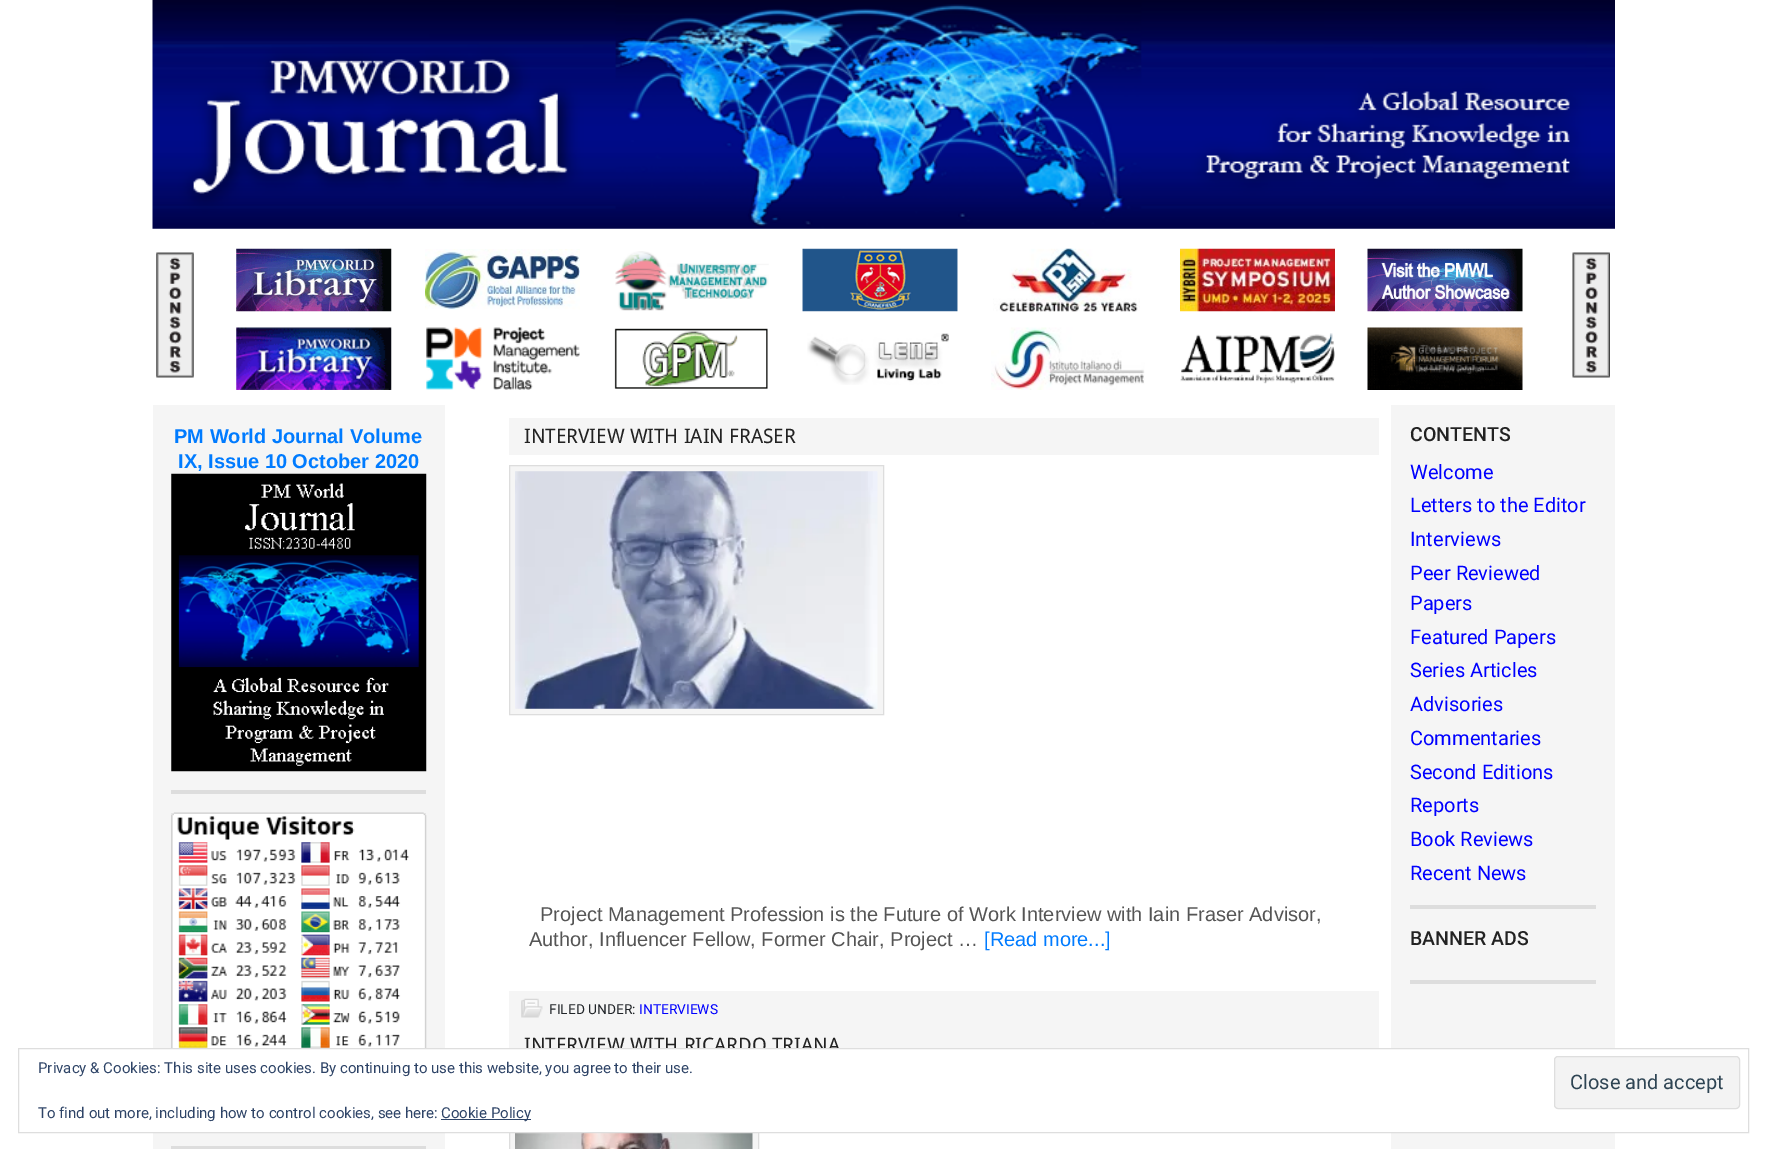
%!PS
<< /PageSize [1766 1149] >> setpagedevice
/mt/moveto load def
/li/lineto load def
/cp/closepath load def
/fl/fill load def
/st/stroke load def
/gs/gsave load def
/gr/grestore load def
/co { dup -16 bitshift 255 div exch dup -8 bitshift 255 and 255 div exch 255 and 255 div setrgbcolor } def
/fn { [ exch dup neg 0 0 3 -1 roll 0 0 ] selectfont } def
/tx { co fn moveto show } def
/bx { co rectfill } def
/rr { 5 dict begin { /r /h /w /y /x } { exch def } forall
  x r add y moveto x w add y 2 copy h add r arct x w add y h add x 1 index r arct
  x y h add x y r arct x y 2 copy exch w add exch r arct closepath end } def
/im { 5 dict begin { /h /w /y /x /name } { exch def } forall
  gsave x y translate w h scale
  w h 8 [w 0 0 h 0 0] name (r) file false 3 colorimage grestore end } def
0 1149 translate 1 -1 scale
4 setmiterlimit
0 0 1766 1149 16#FFFFFF bx
(media/1.raw) 152 0 1463 229 im
(media/2.raw) 156 252 38 126 im
(media/3.raw) 236 248 156 64 im
(media/4.raw) 425 249 155 61 im
(media/5.raw) 615 251 154 60 im
(media/6.raw) 802 248 156 64 im
(media/7.raw) 993 248 147 64 im
(media/8.raw) 1180 248 155 64 im
(media/9.raw) 1367 248 156 64 im
(media/10.raw) 236 327 156 63 im
(media/11.raw) 426 327 154 63 im
(media/12.raw) 614 328 154 61 im
(media/13.raw) 807 333 142 52 im
(media/14.raw) 991 327 154 63 im
(media/15.raw) 1180 333 155 51 im
(media/16.raw) 1367 327 156 63 im
(media/17.raw) 1572 252 38 126 im
153 405 292 744 16#F5F5F5 bx
171 790 255 4 16#DDDDDD bx
(media/18.raw) 171 473 256 299 im
171 1146 255 3 16#DDDDDD bx
171 813 255 235 16#E6E6E6 bx
(media/19.raw) 171 812 256 236 im
509 418 870 37 16#F5F5F5 bx
509.5 465.5 mt 883.5 465.5 li 883.5 714.5 li 509.5 714.5 li cp gs fl gr
16#DDDDDD co
st
(media/20.raw) 515 471 363 238 im
509 991 870 57 16#F5F5F5 bx
(media/21.raw) 521 998 22 20 im
510 1133 248 16 16#F5F5F5 bx
16#DDDDDD co
509.5 1075.5 249 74 rectstroke
(media/22.raw) 515 1133 238 16 im
1391 405 224 744 16#F5F5F5 bx
1410 905 186 4 16#DDDDDD bx
1410 980 186 4 16#DDDDDD bx
(PM World Journal Volume) 174 443 /LiberationSans-Bold 20 16#007BFF tx
(IX, Issue 10 October 2020) 178 468 /LiberationSans-Bold 20 16#007BFF tx
(INTERVIEW WITH IAIN FRASER) 524 443 /DroidSans-Regular 20 16#222222 tx
(Project Management Profession is the Future of Work Interview with Iain Fraser Advisor,) 540 921 /LiberationSans-Regular 20 16#555555 tx
(Author, Influencer Fellow, Former Chair, Project …) 529 946 /LiberationSans-Regular 20 16#555555 tx
([Read more...]) 984 946 /LiberationSans-Regular 20 16#007BFF tx
(FILED UNDER:) 549 1014 /Roboto-Regular 13.75 16#212529 tx
(INTERVIEWS) 639 1014 /Roboto-Regular 13.75 16#0000FF tx
(INTERVIEW WITH RICARDO TRIANA) 524 1052 /DroidSans-Regular 20 16#222222 tx
(CONTENTS) 1410 441 /Roboto-Medium 19.5 16#222222 tx
(Welcome) 1410 479 /Roboto-Regular 20 16#0000FF tx
(Letters to the Editor) 1410 512 /Roboto-Regular 20 16#0000FF tx
(Interviews) 1410 546 /Roboto-Regular 20 16#0000FF tx
(Peer Reviewed) 1410 580 /Roboto-Regular 20 16#0000FF tx
(Papers) 1410 610 /Roboto-Regular 20 16#0000FF tx
(Featured Papers) 1410 644 /Roboto-Regular 20 16#0000FF tx
(Series Articles) 1410 677 /Roboto-Regular 20 16#0000FF tx
(Advisories) 1410 711 /Roboto-Regular 20 16#0000FF tx
(Commentaries) 1410 745 /Roboto-Regular 20 16#0000FF tx
(Second Editions) 1410 779 /Roboto-Regular 20 16#0000FF tx
(Reports) 1410 812 /Roboto-Regular 20 16#0000FF tx
(Book Reviews) 1410 846 /Roboto-Regular 20 16#0000FF tx
(Recent News) 1410 880 /Roboto-Regular 20 16#0000FF tx
(BANNER ADS) 1410 945 /Roboto-Medium 19.5 16#222222 tx
153 1049 1462 83 16#FFFFFF bx
16#DEDEDE co
18.5 1048.5 1730 84 rectstroke
(Privacy & Cookies: This site uses cookies. By continuing to use this website, you agree to their use.) 38 1073 /Roboto-Regular 15 16#2E4467 tx
16#F3F3F3 co
1554.5 1056.5 185 52 3.5 rr gs fl gr
16#DEDEDE co
st
(Close and accept) 1570 1089 /Roboto-Regular 20 16#2E4453 tx
(To find out more, including how to control cookies, see here:) 38 1118 /Roboto-Regular 15 16#2E4467 tx
441 1119 90 1 16#2E4467 bx
(Cookie Policy) 441 1118 /Roboto-Regular 15 16#2E4467 tx
showpage
